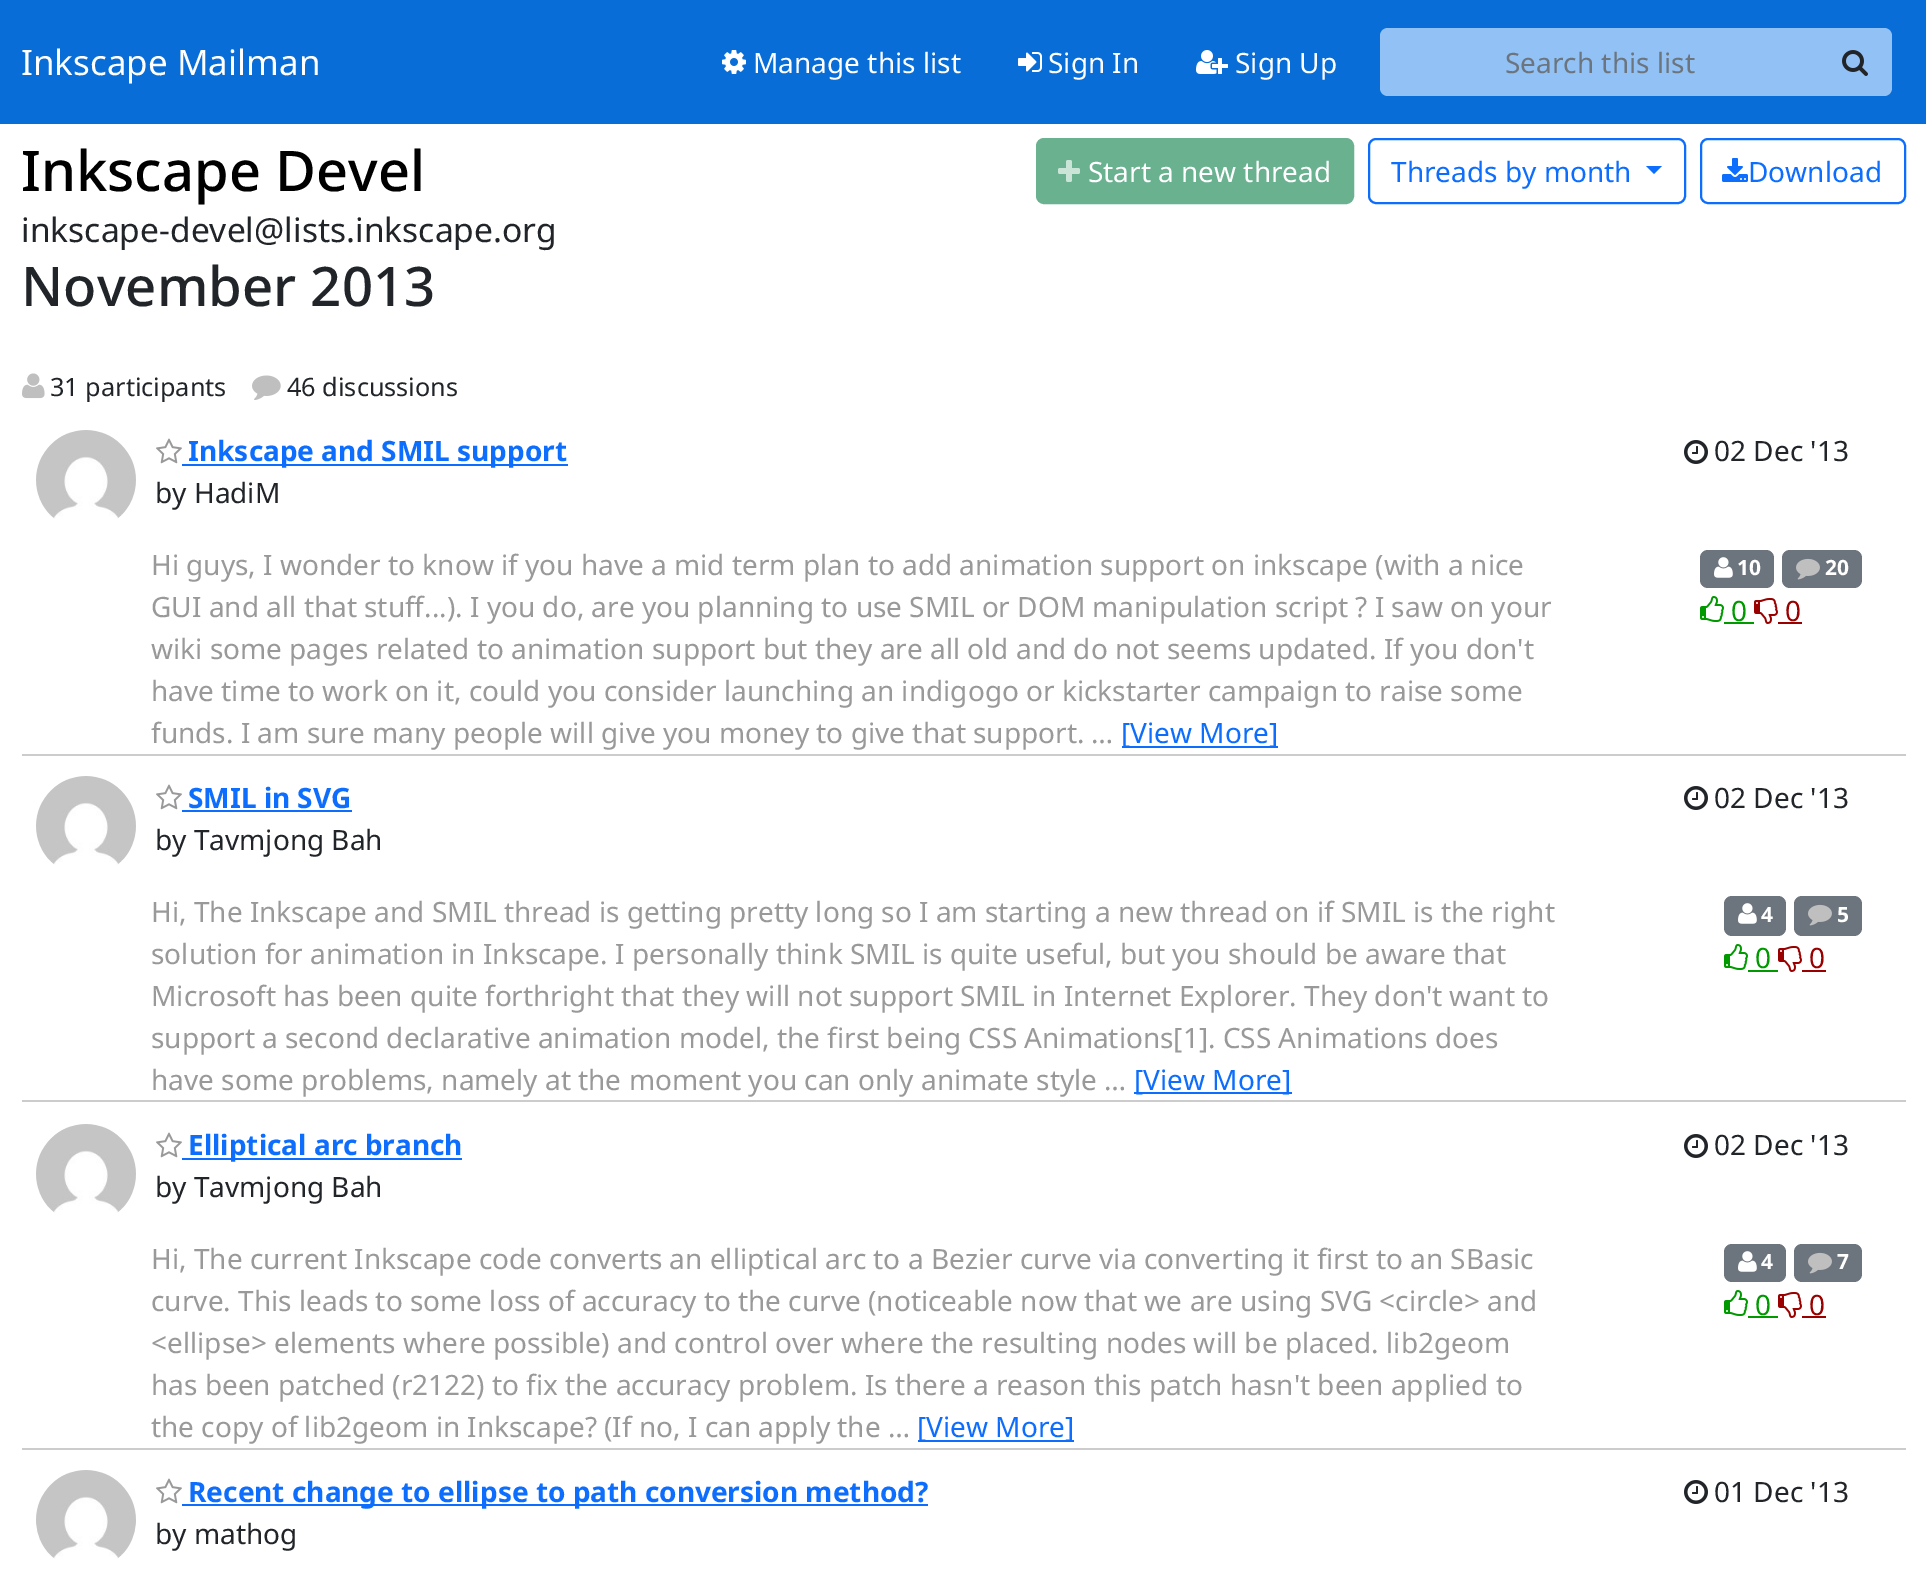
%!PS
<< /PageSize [1926 1579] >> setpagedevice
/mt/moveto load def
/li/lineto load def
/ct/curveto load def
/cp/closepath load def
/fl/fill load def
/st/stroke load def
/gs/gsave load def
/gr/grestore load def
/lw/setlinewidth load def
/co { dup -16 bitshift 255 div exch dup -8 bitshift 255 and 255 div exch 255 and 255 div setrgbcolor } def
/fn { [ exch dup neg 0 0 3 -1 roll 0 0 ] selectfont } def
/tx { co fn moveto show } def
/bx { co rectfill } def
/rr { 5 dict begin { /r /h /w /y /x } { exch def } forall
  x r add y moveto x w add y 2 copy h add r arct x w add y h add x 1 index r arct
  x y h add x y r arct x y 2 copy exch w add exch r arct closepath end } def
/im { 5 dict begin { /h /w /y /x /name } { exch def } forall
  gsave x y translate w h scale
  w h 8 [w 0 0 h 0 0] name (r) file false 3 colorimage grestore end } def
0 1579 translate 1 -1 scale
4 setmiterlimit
0 0 1926 1579 16#FFFFFF bx
0 0 1926 124 16#086DD7 bx
(media/1.raw) 722 50 24 24 im
(media/2.raw) 1018 52 24 20 im
(media/3.raw) 1196 50 32 24 im
16#92C2F5 co
1388 28 mt 1822 28 li 1822 96 li 1388 96 li 1383.5 96 1380 92.5 1380 88 ct 1380 36 li 1380 31.5 1383.5 28 1388 28 ct cp fl
1820 28 mt 1884 28 li 1888.5 28 1892 31.5 1892 36 ct 1892 88 li 1892 92.5 1888.5 96 1884 96 ct 1820 96 li cp fl
(media/4.raw) 1842 50 26 26 im
16#6AB190 co
1037 139 316 64 7 rr gs fl gr
2 lw
st
(media/5.raw) 1058 160 22 22 im
16#0D6EFD co
1369 139 316 64 7 rr st
1646 166 mt 1662 166 li 1654 174 li cp fl
1701 139 204 64 7 rr st
(media/6.raw) 1722 158 26 24 im
(media/7.raw) 22 373 23 26 im
(media/8.raw) 252 375 29 25 im
22 754 1884 2 16#CCCCCC bx
(media/9.raw) 36 430 100 89 im
(media/10.raw) 156 438 26 26 im
182 464 386 2 16#0D6EFD bx
(media/11.raw) 1684 440 24 24 im
1122 746 156 2 16#0D6EFD bx
16#6C757D co
1700 550 74 38 8 rr fl
(media/12.raw) 1714 557 19 21 im
1782 550 80 38 8 rr fl
(media/13.raw) 1796 558 24 22 im
(media/14.raw) 1700 596 24 26 im
1724 622 30 2 16#009900 bx
(media/15.raw) 1754 598 24 26 im
1778 622 24 2 16#990000 bx
22 1100 1884 2 16#CCCCCC bx
(media/16.raw) 36 776 100 89 im
(media/10.raw) 156 784 26 26 im
182 810 170 2 16#0D6EFD bx
(media/11.raw) 1684 786 24 24 im
1134 1092 158 2 16#0D6EFD bx
16#6C757D co
1724 896 62 40 8 rr fl
(media/12.raw) 1738 903 19 21 im
1794 896 68 40 8 rr fl
(media/13.raw) 1808 904 24 22 im
(media/14.raw) 1724 944 24 26 im
1748 970 30 2 16#009900 bx
(media/15.raw) 1778 946 24 26 im
1802 970 24 2 16#990000 bx
22 1448 1884 2 16#CCCCCC bx
(media/16.raw) 36 1124 100 89 im
(media/10.raw) 156 1132 26 26 im
182 1158 280 2 16#0D6EFD bx
(media/11.raw) 1684 1134 24 24 im
918 1440 156 2 16#0D6EFD bx
16#6C757D co
1724 1244 62 38 8 rr fl
(media/12.raw) 1738 1251 19 21 im
1794 1244 68 38 8 rr fl
(media/13.raw) 1808 1252 24 22 im
(media/14.raw) 1724 1290 24 26 im
1748 1316 30 2 16#009900 bx
(media/15.raw) 1778 1292 24 26 im
1802 1316 24 2 16#990000 bx
(media/17.raw) 36 1470 100 89 im
(media/10.raw) 156 1478 26 26 im
182 1504 746 2 16#0D6EFD bx
(media/11.raw) 1684 1480 24 24 im
(Inkscape Mailman) 21 75 /NotoSans-Regular 35 16#FFFFFF tx
(Manage this list) 753 73 /NotoSans-Regular 28 16#FFFFFF tx
(Sign In) 1048 73 /NotoSans-Regular 28 16#FFFFFF tx
(Sign Up) 1235 73 /NotoSans-Regular 28 16#FFFFFF tx
(Search this list) 1505 73 /NotoSans-Regular 28 16#6C757D tx
(Inkscape Devel) 21 191 /NotoSans-Medium 56 16#000000 tx
(Start a new thread) 1088 182 /NotoSans-Regular 28 16#FFFFFF tx
(Threads by month) 1391 182 /NotoSans-Regular 28 16#0D6EFD tx
(Download) 1748 182 /NotoSans-Regular 28 16#0D6EFD tx
(inkscape-devel@lists.inkscape.org) 21 242 /NotoSans-Regular 33.6 16#212529 tx
(November 2013) 21 306 /NotoSans-Medium 54.5 16#212529 tx
(31 participants) 50 396 /NotoSans-Regular 25.25 16#212529 tx
(46 discussions) 287 396 /NotoSans-Regular 25.25 16#212529 tx
(Inkscape and SMIL support) 188 461 /NotoSans-Bold 28 16#0D6EFD tx
(by HadiM) 155 503 /NotoSans-Regular 28 16#212529 tx
(02 Dec '13) 1714 461 /NotoSans-Regular 28 16#212529 tx
(Hi guys, I wonder to know if you have a mid term plan to add animation support on inkscape \(with a nice) 151 575 /NotoSans-Regular 28 16#999999 tx
(GUI and all that stuff...\). I you do, are you planning to use SMIL or DOM manipulation script ? I saw on your) 151 617 /NotoSans-Regular 28 16#999999 tx
(wiki some pages related to animation support but they are all old and do not seems updated. If you don't) 151 659 /NotoSans-Regular 28 16#999999 tx
(have time to work on it, could you consider launching an indigogo or kickstarter campaign to raise some) 151 701 /NotoSans-Regular 28 16#999999 tx
(funds. I am sure many people will give you money to give that support. …) 151 743 /NotoSans-Regular 28 16#999999 tx
([View More]) 1121 743 /NotoSans-Regular 28 16#0D6EFD tx
(10) 1737 575 /NotoSans-Bold 21 16#FFFFFF tx
(20) 1825 575 /NotoSans-Bold 21 16#FFFFFF tx
(0) 1731 621 /NotoSans-Regular 28 16#009900 tx
(0) 1785 621 /NotoSans-Regular 28 16#990000 tx
(SMIL in SVG) 188 808 /NotoSans-Bold 28 16#0D6EFD tx
(by Tavmjong Bah) 155 850 /NotoSans-Regular 28 16#212529 tx
(02 Dec '13) 1714 808 /NotoSans-Regular 28 16#212529 tx
(Hi, The Inkscape and SMIL thread is getting pretty long so I am starting a new thread on if SMIL is the right) 151 922 /NotoSans-Regular 28 16#999999 tx
(solution for animation in Inkscape. I personally think SMIL is quite useful, but you should be aware that) 151 964 /NotoSans-Regular 28 16#999999 tx
(Microsoft has been quite forthright that they will not support SMIL in Internet Explorer. They don't want to) 151 1006 /NotoSans-Regular 28 16#999999 tx
(support a second declarative animation model, the first being CSS Animations[1]. CSS Animations does) 151 1048 /NotoSans-Regular 28 16#999999 tx
(have some problems, namely at the moment you can only animate style …) 151 1090 /NotoSans-Regular 28 16#999999 tx
([View More]) 1134 1090 /NotoSans-Regular 28 16#0D6EFD tx
(4) 1761 922 /NotoSans-Bold 21 16#FFFFFF tx
(5) 1837 922 /NotoSans-Bold 21 16#FFFFFF tx
(0) 1755 968 /NotoSans-Regular 28 16#009900 tx
(0) 1809 968 /NotoSans-Regular 28 16#990000 tx
(Elliptical arc branch) 188 1155 /NotoSans-Bold 28 16#0D6EFD tx
(by Tavmjong Bah) 155 1197 /NotoSans-Regular 28 16#212529 tx
(02 Dec '13) 1714 1155 /NotoSans-Regular 28 16#212529 tx
(Hi, The current Inkscape code converts an elliptical arc to a Bezier curve via converting it first to an SBasic) 151 1269 /NotoSans-Regular 28 16#999999 tx
(curve. This leads to some loss of accuracy to the curve \(noticeable now that we are using SVG <circle> and) 151 1311 /NotoSans-Regular 28 16#999999 tx
(<ellipse> elements where possible\) and control over where the resulting nodes will be placed. lib2geom) 151 1353 /NotoSans-Regular 28 16#999999 tx
(has been patched \(r2122\) to fix the accuracy problem. Is there a reason this patch hasn't been applied to) 151 1395 /NotoSans-Regular 28 16#999999 tx
(the copy of lib2geom in Inkscape? \(If no, I can apply the …) 151 1437 /NotoSans-Regular 28 16#999999 tx
([View More]) 917 1437 /NotoSans-Regular 28 16#0D6EFD tx
(4) 1761 1269 /NotoSans-Bold 21 16#FFFFFF tx
(7) 1837 1269 /NotoSans-Bold 21 16#FFFFFF tx
(0) 1755 1315 /NotoSans-Regular 28 16#009900 tx
(0) 1809 1315 /NotoSans-Regular 28 16#990000 tx
(Recent change to ellipse to path conversion method?) 188 1502 /NotoSans-Bold 28 16#0D6EFD tx
(by mathog) 155 1544 /NotoSans-Regular 28 16#212529 tx
(01 Dec '13) 1714 1502 /NotoSans-Regular 28 16#212529 tx
showpage
